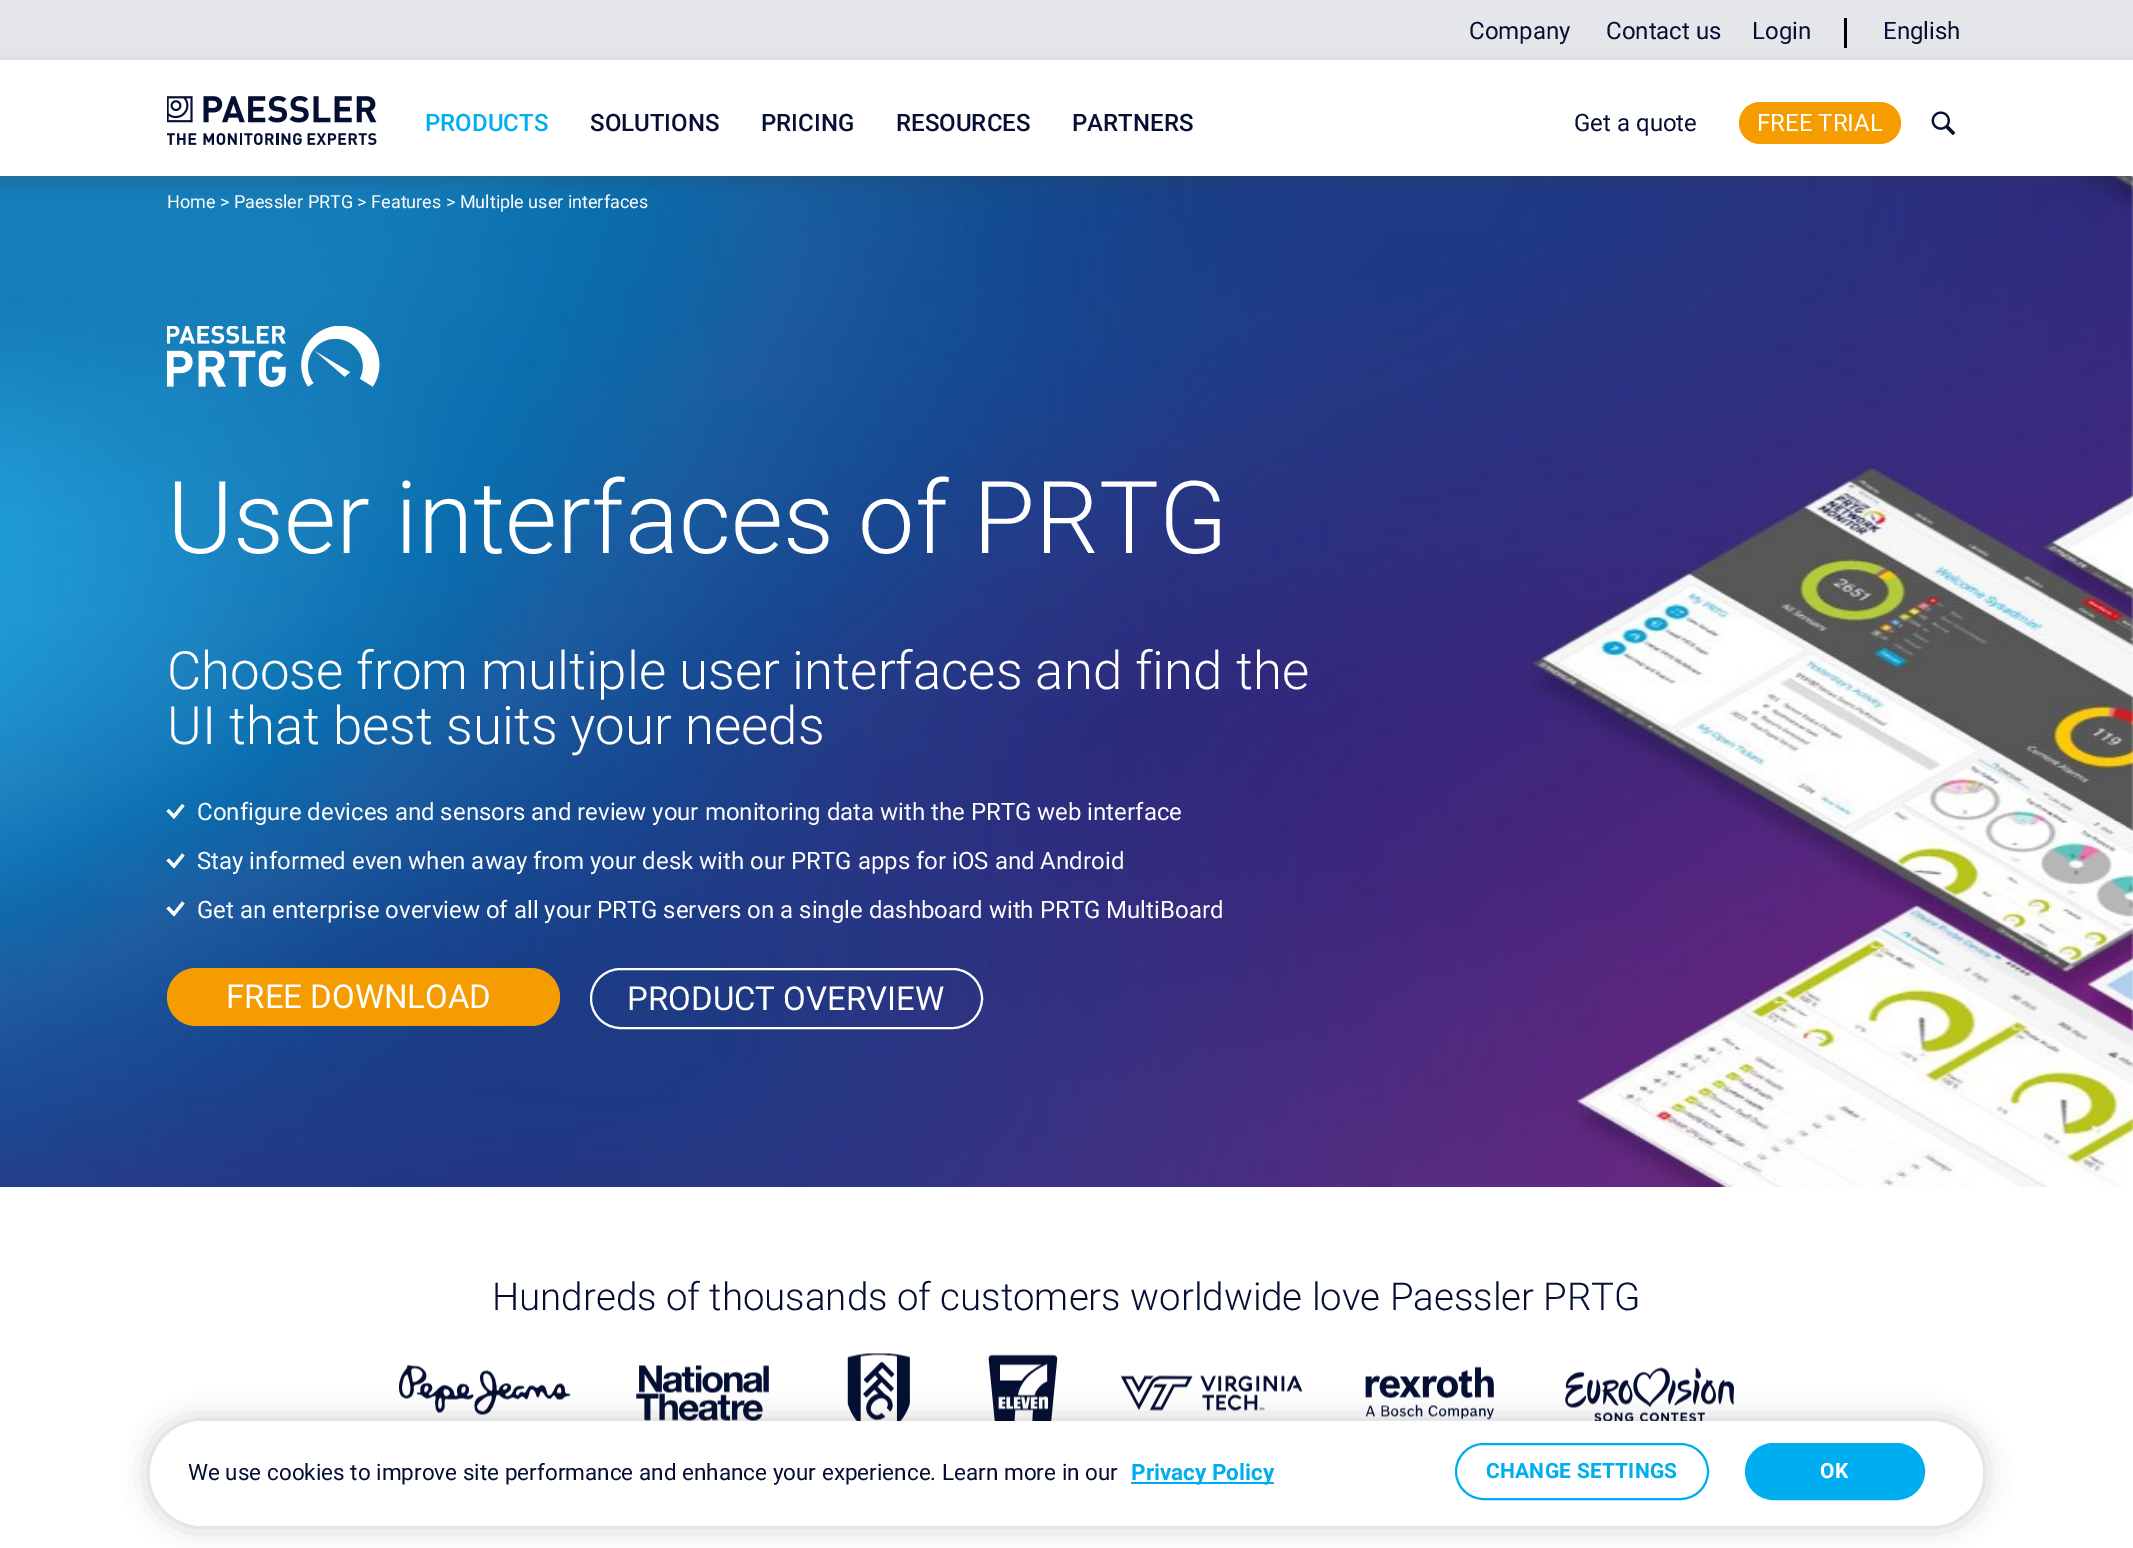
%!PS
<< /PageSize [2133 1548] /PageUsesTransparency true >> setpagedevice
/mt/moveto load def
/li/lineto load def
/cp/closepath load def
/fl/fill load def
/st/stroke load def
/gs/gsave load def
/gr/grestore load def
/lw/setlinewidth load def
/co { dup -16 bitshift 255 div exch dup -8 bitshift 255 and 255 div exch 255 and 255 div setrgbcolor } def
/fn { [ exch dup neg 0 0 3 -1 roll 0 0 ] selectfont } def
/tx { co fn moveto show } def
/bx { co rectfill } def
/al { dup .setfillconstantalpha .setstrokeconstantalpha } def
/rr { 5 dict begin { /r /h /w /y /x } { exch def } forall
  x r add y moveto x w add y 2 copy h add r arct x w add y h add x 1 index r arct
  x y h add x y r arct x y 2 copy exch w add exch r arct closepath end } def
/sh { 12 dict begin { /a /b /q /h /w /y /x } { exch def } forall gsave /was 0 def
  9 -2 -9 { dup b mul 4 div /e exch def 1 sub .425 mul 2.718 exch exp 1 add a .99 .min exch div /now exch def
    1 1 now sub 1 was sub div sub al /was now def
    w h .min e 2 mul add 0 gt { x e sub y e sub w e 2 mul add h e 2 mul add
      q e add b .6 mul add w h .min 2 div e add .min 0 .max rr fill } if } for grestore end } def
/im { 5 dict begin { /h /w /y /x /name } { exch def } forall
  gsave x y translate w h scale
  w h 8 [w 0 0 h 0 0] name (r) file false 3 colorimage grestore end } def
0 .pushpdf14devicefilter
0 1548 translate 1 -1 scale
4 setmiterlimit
0 0 2133 1548 16#FFFFFF bx
0 0 2133 60 16#E5E6E9 bx
(media/3.raw) 0 176 2133 1011 im
16#383B47 co
-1 66 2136 119 0 7.5 .2 sh
1844 18 3 30 16#000000 bx
0 60 2133 116 16#FFFFFF bx
(media/1.raw) 167 96 210 49 im
16#F59C00 co
1739 102 162 42 21 rr fl
(media/2.raw) 1931 111 24 24 im
(media/4.raw) 167 326 213 61 im
16#FFFFFF co
182 804 mt 174 814 li 169 809 li 166.5 811 li 174 819 li 184.5 806 li cp fl
182 853.5 mt 174 863.5 li 169 858.5 li 166.5 860.5 li 174 868.5 li 184.5 855.5 li cp fl
182 901.5 mt 174 911.5 li 169 906.5 li 166.5 908.5 li 174 916.5 li 184.5 903.5 li cp fl
16#F59C00 co
167 968 393 58 29 rr fl
16#FFFFFF co
2 lw
591 969 391 59 29.5 rr st
(media/5.raw) 399 1353 1335 68 im
16#000000 co
150 1421 1833 105 52.5 13.5 .2 sh
16#FFFFFF co
150 1421 1833 105 52.5 rr fl
1131 1482 143 2 16#00AEEF bx
1456 1444 252 55 27.5 rr st
1746 1444 178 55 27.5 rr gs fl gr
st
(Company) 1469 39 /Roboto-Regular 24 16#050F34 tx
(Contact us) 1606 39 /Roboto-Regular 24 16#050F34 tx
(Login) 1752 39 /Roboto-Regular 24 16#050F34 tx
(English) 1883 39 /Roboto-Regular 24 16#050F34 tx
(PRODUCTS) 425 131 /Roboto-Medium 24 16#00AEEF tx
(SOLUTIONS) 590 131 /Roboto-Medium 24 16#050F34 tx
(PRICING) 761 131 /Roboto-Medium 24 16#050F34 tx
(RESOURCES) 896 131 /Roboto-Medium 24 16#050F34 tx
(PARTNERS) 1072 131 /Roboto-Medium 24 16#050F34 tx
(Get a quote) 1574 131 /Roboto-Regular 24 16#050F34 tx
(FREE TRIAL) 1757 131 /Roboto-Regular 24 16#FFFFFF tx
(Home > Paessler PRTG > Features > Multiple user interfaces) 167 208 /Roboto-Regular 18 16#FFFFFF tx
(User interfaces of PRTG) 167 553 /Roboto-Light 100.75 16#FFFFFF tx
(Choose from multiple user interfaces and find the) 167 689 /Roboto-Light 52.8 16#FFFFFF tx
(UI that best suits your needs) 167 744 /Roboto-Light 52.8 16#FFFFFF tx
(Configure devices and sensors and review your monitoring data with the PRTG web interface) 197 820 /Roboto-Regular 24 16#FFFFFF tx
(Stay informed even when away from your desk with our PRTG apps for iOS and Android) 197 869 /Roboto-Regular 24 16#FFFFFF tx
(Get an enterprise overview of all your PRTG servers on a single dashboard with PRTG MultiBoard) 197 918 /Roboto-Regular 24 16#FFFFFF tx
(FREE DOWNLOAD) 226 1008 /Roboto-Regular 33 16#FFFFFF tx
(PRODUCT OVERVIEW) 627 1010 /Roboto-Regular 33 16#FFFFFF tx
(Hundreds of thousands of customers worldwide love Paessler PRTG) 492 1310 /Roboto-Light 38.4 16#050F34 tx
(We use cookies to improve site performance and enhance your experience. Learn more in our) 188 1480 /Roboto-Regular 22.5 16#050F34 tx
(Privacy Policy) 1131 1480 /Roboto-Bold 22.5 16#00AEEF tx
/Roboto-Bold 21 fn
1486 1478 mt .25 0 (CHANGE SETTINGS) ashow
16#FFFFFF co
1820 1478 mt .25 0 (OK) ashow
.poppdf14devicefilter showpage
